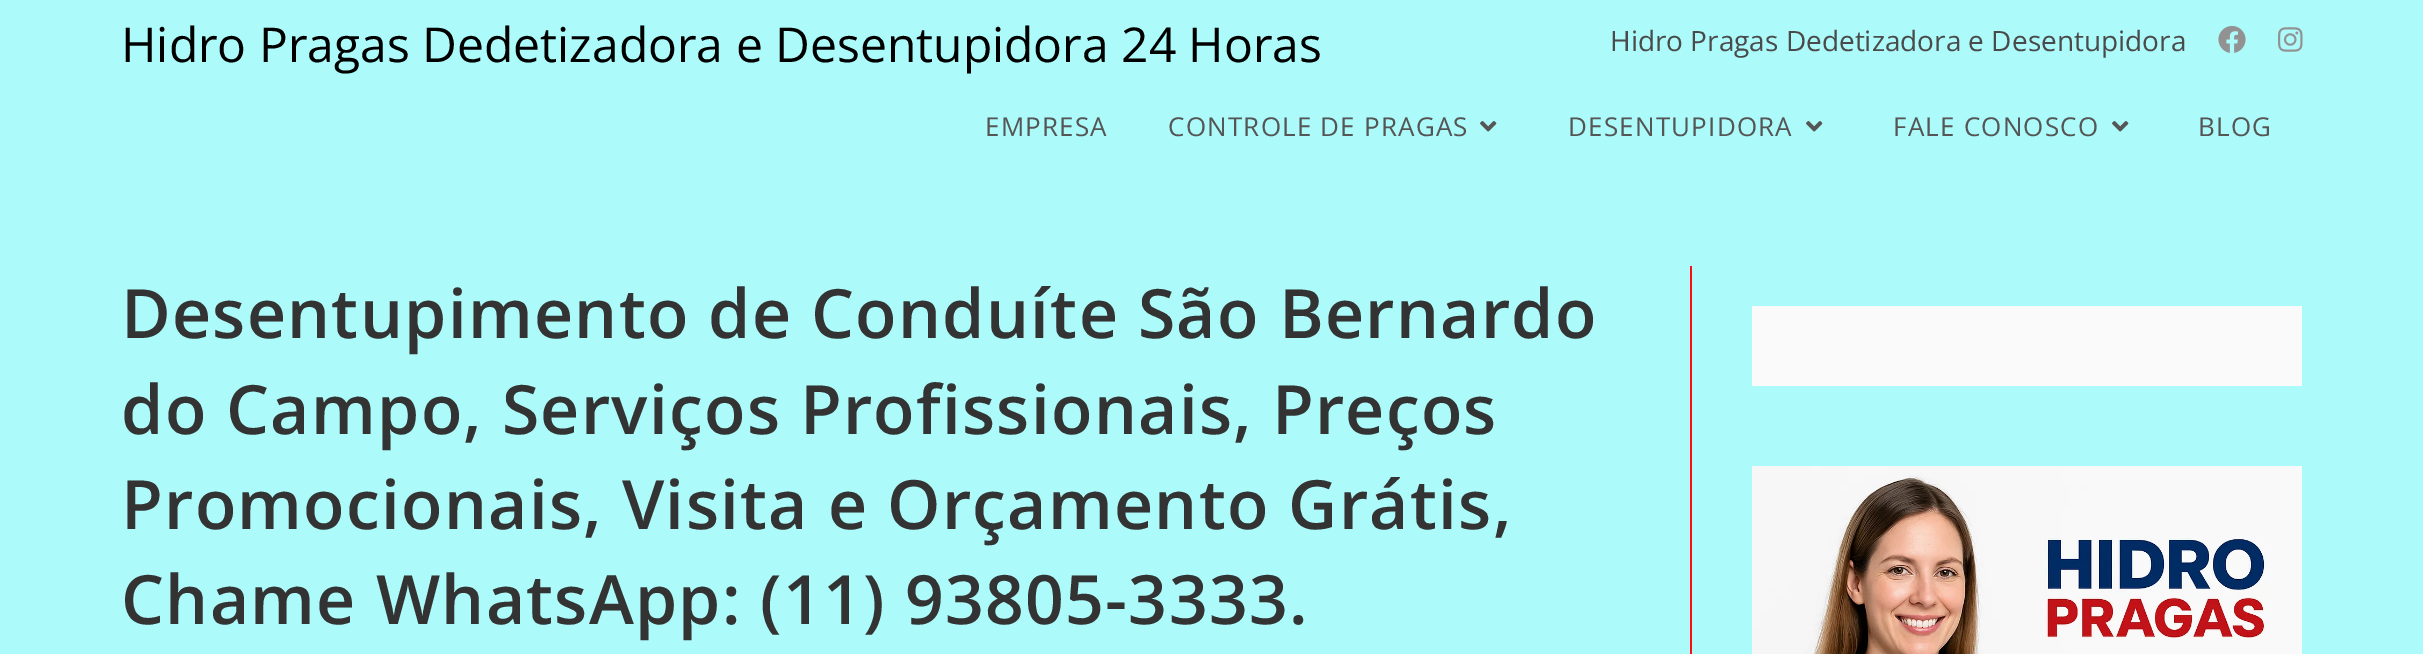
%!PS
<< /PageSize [2423 654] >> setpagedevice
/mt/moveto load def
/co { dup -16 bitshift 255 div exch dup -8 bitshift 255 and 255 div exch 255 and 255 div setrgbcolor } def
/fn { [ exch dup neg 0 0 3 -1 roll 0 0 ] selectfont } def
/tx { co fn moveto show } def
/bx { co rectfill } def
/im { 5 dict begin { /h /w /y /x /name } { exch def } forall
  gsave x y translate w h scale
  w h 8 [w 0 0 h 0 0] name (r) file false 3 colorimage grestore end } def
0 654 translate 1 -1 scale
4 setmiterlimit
0 0 2423 654 16#ACFAFA bx
(media/1.raw) 2218 26 28 27 im
(media/2.raw) 2278 27 25 25 im
(media/3.raw) 1480 121 17 11 im
(media/3.raw) 1806 121 17 11 im
(media/3.raw) 2112 121 17 11 im
1690 266 2 388 16#FF0C0C bx
1752 306 550 80 16#FAFAFA bx
(media/4.raw) 1752 466 550 188 im
(Hidro Pragas Dedetizadora e Desentupidora 24 Horas) 121 62 /OpenSans-Regular 48 16#000000 tx
(Hidro Pragas Dedetizadora e Desentupidora) 1610 51 /OpenSans-Regular 28 16#4A4A4A tx
/OpenSans-Regular 26 fn
16#555555 co
985 136 mt 1.2 0 (EMPRESA) ashow
1168 136 mt 1.2 0 (CONTROLE DE PRAGAS) ashow
1568 136 mt 1.2 0 (DESENTUPIDORA) ashow
1893 136 mt 1.2 0 (FALE CONOSCO) ashow
2198 136 mt 1.2 0 (BLOG) ashow
/OpenSans-SemiBold 68 fn
16#333333 co
121 338 mt 1.2 0 (Desentupimento de Conduíte São Bernardo) ashow
121 434 mt 1.2 0 (do Campo, Serviços Profissionais, Preços) ashow
121 529 mt 1.2 0 (Promocionais, Visita e Orçamento Grátis,) ashow
121 624 mt 1.2 0 (Chame WhatsApp: \(11\) 93805-3333.) ashow
showpage
